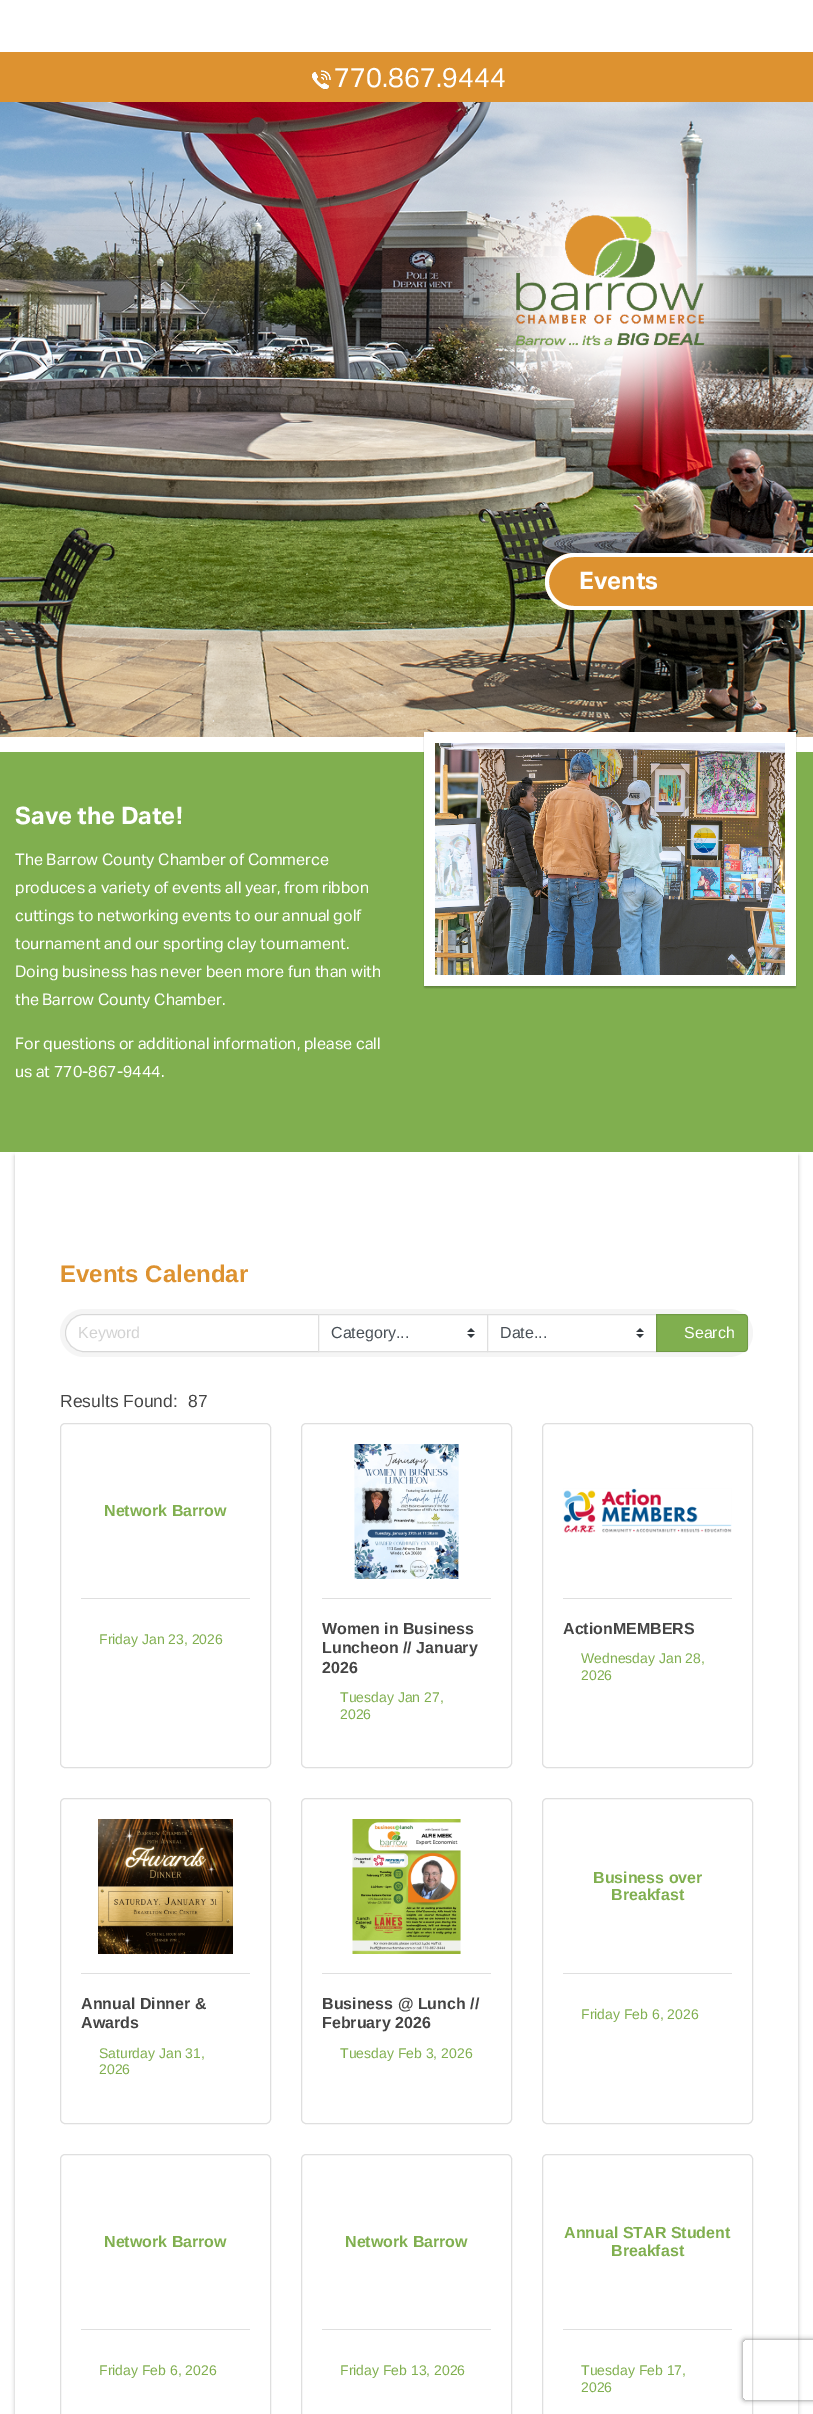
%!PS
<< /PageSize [813 2414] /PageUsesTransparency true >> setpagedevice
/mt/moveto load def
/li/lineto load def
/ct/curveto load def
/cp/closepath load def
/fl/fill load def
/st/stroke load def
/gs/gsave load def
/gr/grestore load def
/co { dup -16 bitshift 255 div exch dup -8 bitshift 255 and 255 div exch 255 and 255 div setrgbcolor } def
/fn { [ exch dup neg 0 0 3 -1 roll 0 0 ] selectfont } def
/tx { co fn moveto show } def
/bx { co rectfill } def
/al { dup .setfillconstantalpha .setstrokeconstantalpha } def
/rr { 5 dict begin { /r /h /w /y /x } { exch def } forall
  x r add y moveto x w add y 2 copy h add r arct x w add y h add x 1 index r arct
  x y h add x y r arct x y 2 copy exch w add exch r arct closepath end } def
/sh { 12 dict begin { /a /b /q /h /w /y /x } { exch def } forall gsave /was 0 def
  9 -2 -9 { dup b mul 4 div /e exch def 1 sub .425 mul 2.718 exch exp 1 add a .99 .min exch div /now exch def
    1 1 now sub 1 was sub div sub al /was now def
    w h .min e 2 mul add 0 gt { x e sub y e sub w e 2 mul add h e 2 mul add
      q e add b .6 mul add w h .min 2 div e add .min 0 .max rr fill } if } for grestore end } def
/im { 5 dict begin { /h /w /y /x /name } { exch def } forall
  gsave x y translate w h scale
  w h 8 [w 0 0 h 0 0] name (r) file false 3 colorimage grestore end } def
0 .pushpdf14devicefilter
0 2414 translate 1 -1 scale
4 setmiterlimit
0 0 813 2414 16#FFFFFF bx
0 52 813 50 16#DD9230 bx
(media/1.raw) 311 70 20 20 im
(media/2.raw) 0 102 813 635 im
(media/3.raw) 439 130 341 332 im
573.5 553 mt 813 553 li 813 610 li 573.5 610 li 558 610 545 597 545 581.5 ct 545 566 558 553 573.5 553 ct cp fl
16#FFFFFF co
574 553 mt 813 553 li 813 610 li 574 610 li 558 610 545 597 545 582 ct 545 566 558 553 574 553 ct cp 574 557 mt 813 557 li 813 606 li 574 606 li 560 606 549 595 549 582 ct 549 568 560 557 574 557 ct cp eofill
0 752 813 400 16#80AF4F bx
(media/4.raw) 423 732 374 257 im
gs
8 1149 mt 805 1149 li 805 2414 li 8 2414 li cp 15 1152 mt 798 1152 li 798 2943 li 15 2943 li cp eoclip newpath
16#000000 co
15 1156 783 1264 0 2 .25 sh
gr
16#F5F5F5 co
60 1309 693 48 24 rr fl
16#FFFFFF co
84 1315 mt 318 1315 li 318 1351 li 84 1351 li 74 1351 66 1343 66 1333 ct 66 1323 74 1315 84 1315 ct cp fl
0.12 al
16#000000 co
84 1314.5 mt 318.5 1314.5 li 318.5 1351.5 li 84 1351.5 li 74 1351.5 65.5 1343 65.5 1333 ct 65.5 1323 74 1314.5 84 1314.5 ct cp st
1 al
319 1315 168 36 16#FFFFFF bx
(media/5.raw) 467 1328 8 10 im
16#DFDFDF co
318.5 1314.5 169 37 rectstroke
488 1315 168 36 16#FFFFFF bx
(media/5.raw) 636 1328 8 10 im
16#DFDFDF co
487.5 1314.5 169 37 rectstroke
16#80AF4F co
656 1314 mt 744 1314 li 746 1314 748 1316 748 1318 ct 748 1348 li 748 1350 746 1352 744 1352 ct 656 1352 li cp fl
0.12 al
16#000000 co
656.5 1314.5 mt 744 1314.5 li 746 1314.5 747.5 1316 747.5 1318 ct 747.5 1348 li 747.5 1350 746 1351.5 744 1351.5 ct 656.5 1351.5 li cp st
1 al
16#DFDFDF co
60.5 1423.5 210 344 4.5 rr st
81 1598 169 1 16#DFDFDF bx
301.5 1423.5 210 344 4.5 rr st
322 1598 169 1 16#DFDFDF bx
(media/6.raw) 354 1444 105 135 im
542.5 1423.5 210 344 4.5 rr st
563 1598 169 1 16#DFDFDF bx
(media/7.raw) 563 1488 169 45 im
542.5 1798.5 210 325 4.5 rr st
563 1973 169 1 16#DFDFDF bx
60.5 1798.5 210 325 4.5 rr st
81 1973 169 1 16#DFDFDF bx
(media/8.raw) 98 1819 135 135 im
301.5 1798.5 210 325 4.5 rr st
322 1973 169 1 16#DFDFDF bx
(media/9.raw) 352 1819 109 135 im
60.5 2154.5 210 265 4.5 rr st
81 2329 169 1 16#DFDFDF bx
301.5 2154.5 210 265 4.5 rr st
322 2329 169 1 16#DFDFDF bx
542.5 2154.5 210 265 4.5 rr st
563 2329 169 1 16#DFDFDF bx
gs
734 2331 mt 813 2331 li 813 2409 li 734 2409 li cp 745 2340 mt 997 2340 li 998 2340 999 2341 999 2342 ct 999 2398 li 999 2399 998 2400 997 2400 ct 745 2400 li 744 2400 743 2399 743 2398 ct 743 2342 li 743 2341 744 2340 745 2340 ct cp eoclip newpath
16#808080 co
743 2340 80 60 2 2.5 1 sh
gr
(770.867.9444) 334 87 /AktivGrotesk-Regular 27 16#FFFFFF tx
(Events) 579 589 /AktivGrotesk-Bold 24 16#FFFFFF tx
(Save the Date!) 15 824 /AktivGrotesk-Bold 24 16#FFFFFF tx
(The Barrow County Chamber of Commerce) 15 865 /AktivGrotesk-Regular 16 16#FFFFFF tx
(produces a variety of events all year, from ribbon) 15 893 /AktivGrotesk-Regular 16 16#FFFFFF tx
(cuttings to networking events to our annual golf) 15 921 /AktivGrotesk-Regular 16 16#FFFFFF tx
(tournament and our sporting clay tournament.) 15 949 /AktivGrotesk-Regular 16 16#FFFFFF tx
(Doing business has never been more fun than with) 15 977 /AktivGrotesk-Regular 16 16#FFFFFF tx
(the Barrow County Chamber.) 15 1005 /AktivGrotesk-Regular 16 16#FFFFFF tx
(For questions or additional information, please call) 15 1049 /AktivGrotesk-Regular 16 16#FFFFFF tx
(us at 770-867-9444.) 15 1077 /AktivGrotesk-Regular 16 16#FFFFFF tx
(Events Calendar) 60 1282 /LiberationSans-Bold 24 16#DD9230 tx
(Keyword) 78 1338 /LiberationSans-Regular 16 16#D2D2D2 tx
(Category...) 331 1338 /LiberationSans-Regular 16 16#495057 tx
(Date...) 500 1338 /LiberationSans-Regular 16 16#495057 tx
(Search) 684 1338 /LiberationSans-Regular 16 16#FFFFFF tx
(Results Found:) 60 1407 /LiberationSans-Regular 17.5 16#444444 tx
(87) 188 1407 /LiberationSans-Regular 17.5 16#444444 tx
(Network Barrow) 104 1516 /LiberationSans-Bold 16 16#80AF4F tx
(Friday Jan 23, 2026) 99 1644 /LiberationSans-Regular 14 16#80AF4F tx
(Women in Business) 322 1634 /LiberationSans-Bold 16 16#444444 tx
(Luncheon // January) 322 1653 /LiberationSans-Bold 16 16#444444 tx
(2026) 322 1673 /LiberationSans-Bold 16 16#444444 tx
(Tuesday Jan 27,) 340 1702 /LiberationSans-Regular 14 16#80AF4F tx
(2026) 340 1719 /LiberationSans-Regular 14 16#80AF4F tx
(ActionMEMBERS) 563 1634 /LiberationSans-Bold 16 16#444444 tx
(Wednesday Jan 28,) 581 1663 /LiberationSans-Regular 14 16#80AF4F tx
(2026) 581 1680 /LiberationSans-Regular 14 16#80AF4F tx
(Business over) 593 1883 /LiberationSans-Bold 16 16#80AF4F tx
(Breakfast) 611 1900 /LiberationSans-Bold 16 16#80AF4F tx
(Friday Feb 6, 2026) 581 2019 /LiberationSans-Regular 14 16#80AF4F tx
(Annual Dinner &) 81 2009 /LiberationSans-Bold 16 16#444444 tx
(Awards) 81 2028 /LiberationSans-Bold 16 16#444444 tx
(Saturday Jan 31,) 99 2058 /LiberationSans-Regular 14 16#80AF4F tx
(2026) 99 2074 /LiberationSans-Regular 14 16#80AF4F tx
(Business @ Lunch //) 322 2009 /LiberationSans-Bold 16 16#444444 tx
(February 2026) 322 2028 /LiberationSans-Bold 16 16#444444 tx
(Tuesday Feb 3, 2026) 340 2058 /LiberationSans-Regular 14 16#80AF4F tx
(Network Barrow) 104 2247 /LiberationSans-Bold 16 16#80AF4F tx
(Friday Feb 6, 2026) 99 2375 /LiberationSans-Regular 14 16#80AF4F tx
(Network Barrow) 345 2247 /LiberationSans-Bold 16 16#80AF4F tx
(Friday Feb 13, 2026) 340 2375 /LiberationSans-Regular 14 16#80AF4F tx
(Annual STAR Student) 564 2238 /LiberationSans-Bold 16 16#80AF4F tx
(Breakfast) 611 2256 /LiberationSans-Bold 16 16#80AF4F tx
(Tuesday Feb 17,) 581 2375 /LiberationSans-Regular 14 16#80AF4F tx
(2026) 581 2392 /LiberationSans-Regular 14 16#80AF4F tx
.poppdf14devicefilter showpage
